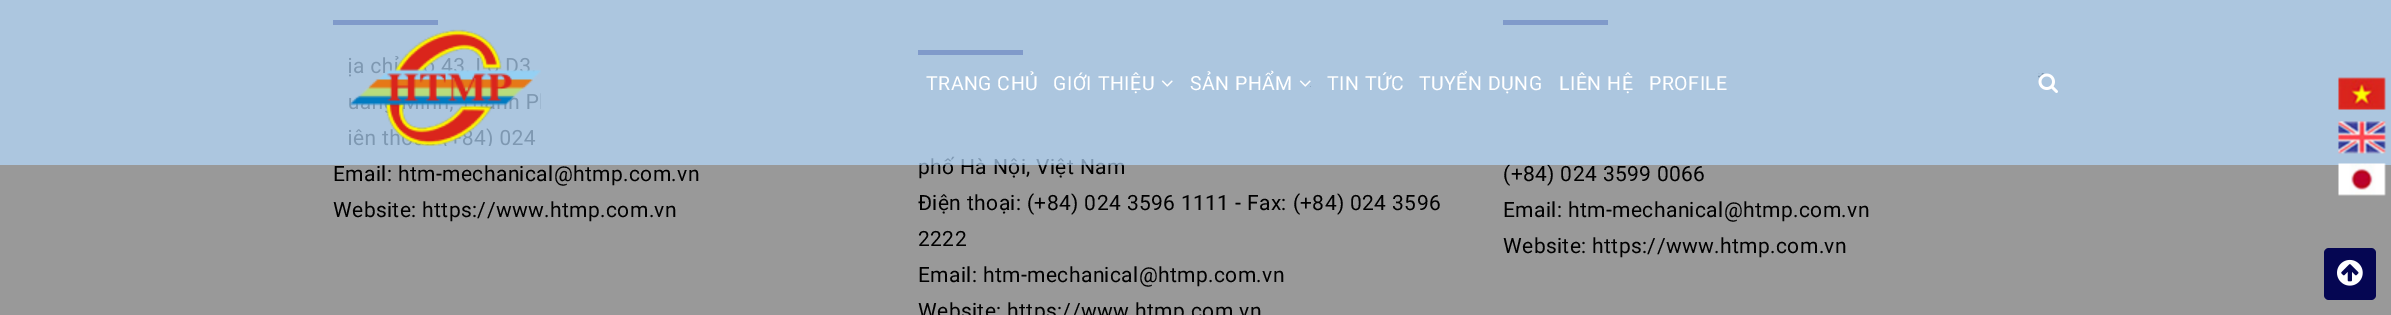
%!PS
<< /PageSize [2391 315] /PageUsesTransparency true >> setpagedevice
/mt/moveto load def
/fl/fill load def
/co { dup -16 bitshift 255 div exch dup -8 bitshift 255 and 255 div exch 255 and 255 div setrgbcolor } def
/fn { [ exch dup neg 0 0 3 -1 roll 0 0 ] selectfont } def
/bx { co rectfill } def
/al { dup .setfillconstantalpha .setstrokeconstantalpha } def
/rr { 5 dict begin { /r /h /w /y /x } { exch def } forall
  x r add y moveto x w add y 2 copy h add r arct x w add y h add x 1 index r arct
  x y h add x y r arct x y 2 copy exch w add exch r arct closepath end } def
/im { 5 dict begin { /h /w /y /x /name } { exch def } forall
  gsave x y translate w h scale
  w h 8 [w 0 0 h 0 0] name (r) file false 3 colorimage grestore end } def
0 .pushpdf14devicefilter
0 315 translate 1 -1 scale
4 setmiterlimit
0 0 2391 315 16#999999 bx
333 20 105 5 16#050652 bx
918 50 105 5 16#050652 bx
1503 20 105 5 16#050652 bx
2324 248 52 52 5 rr fl
(media/8.raw) 2337 259 26 27 im
/Roboto-Regular 21 fn
16#000000 co
333 181 mt .38 0 (Email: htm-mechanical@htmp.com.vn) ashow
333 217 mt .38 0 (Website: https://www.htmp.com.vn) ashow
918 174 mt .38 0 (phố Hà Nội, Việt Nam) ashow
918 210 mt .38 0 (Điện thoại: \(+84\) 024 3596 1111 - Fax: \(+84\) 024 3596) ashow
918 246 mt .38 0 (2222) ashow
918 282 mt .38 0 (Email: htm-mechanical@htmp.com.vn) ashow
918 318 mt .38 0 (Website: https://www.htmp.com.vn) ashow
1503 181 mt .38 0 (\(+84\) 024 3599 0066) ashow
0.7 al
0 0 2391 165 16#B4D9FD bx
1 al
(media/7.raw) 2338 163 48 33 im
(media/6.raw) 2338 121 48 33 im
(media/5.raw) 2338 77 48 33 im
(media/4.raw) 2038 73 20 20 im
/Roboto-Regular 19.5 fn
16#FFFFFF co
1649 90 mt .5 0 (PROFILE) ashow
1559 90 mt .5 0 (LIÊN HỆ) ashow
1419 90 mt .5 0 (TUYỂN DỤNG) ashow
1327 90 mt .5 0 (TIN TỨC) ashow
(media/3.raw) 1299 80 12 7 im
1190 90 mt .5 0 (SẢN PHẨM) ashow
(media/2.raw) 1161 80 12 7 im
1053 90 mt .5 0 (GIỚI THIỆU) ashow
926 90 mt .5 0 (TRANG CHỦ) ashow
(media/1.raw) 349 29 192 117 im
/Roboto-Regular 21 fn
16#000000 co
1503 217 mt .38 0 (Email: htm-mechanical@htmp.com.vn) ashow
1503 253 mt .38 0 (Website: https://www.htmp.com.vn) ashow
.poppdf14devicefilter showpage
